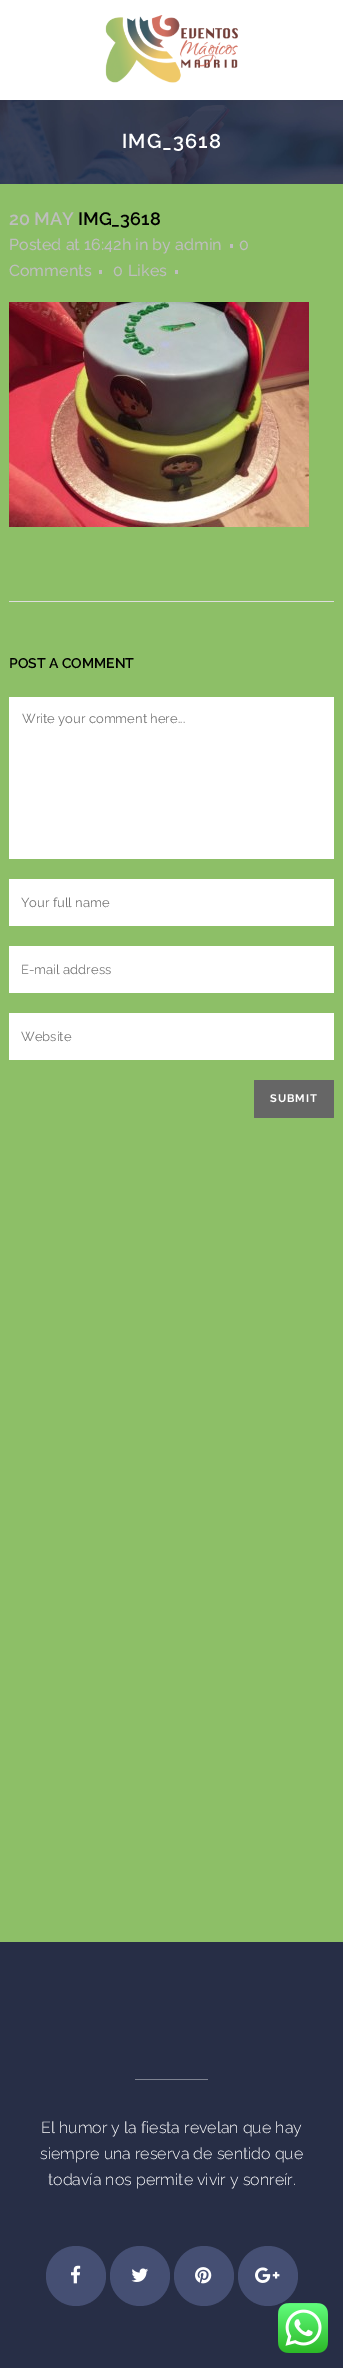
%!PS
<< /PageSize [343 2368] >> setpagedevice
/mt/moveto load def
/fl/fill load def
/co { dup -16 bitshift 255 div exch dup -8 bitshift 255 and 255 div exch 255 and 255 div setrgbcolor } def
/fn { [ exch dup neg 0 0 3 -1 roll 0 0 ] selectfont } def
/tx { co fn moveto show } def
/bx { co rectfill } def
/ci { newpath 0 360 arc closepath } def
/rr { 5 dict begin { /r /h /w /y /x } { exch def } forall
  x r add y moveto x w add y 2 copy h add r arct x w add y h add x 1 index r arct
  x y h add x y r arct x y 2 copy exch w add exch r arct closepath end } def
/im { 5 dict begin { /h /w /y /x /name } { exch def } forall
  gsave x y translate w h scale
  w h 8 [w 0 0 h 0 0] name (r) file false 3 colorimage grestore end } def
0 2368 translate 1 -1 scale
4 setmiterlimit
0 0 343 2368 16#8DBF67 bx
0 0 343 100 16#FFFFFF bx
(media/1.raw) 105 15 133 68 im
(media/2.raw) 0 100 343 84 im
230 244 3 4 16#BEBEBE bx
99 270 3 4 16#BEBEBE bx
175 270 3 4 16#BEBEBE bx
(media/3.raw) 9 302 300 225 im
9 601 325 1 16#DDDDDD bx
9 697 325 162 16#FFFFFF bx
9 879 325 47 16#FFFFFF bx
9 946 325 47 16#FFFFFF bx
9 1013 325 47 16#FFFFFF bx
16#666666 co
254 1080 80 38 1 rr fl
0 1942 343 426 16#272E46 bx
135 2079 73 1 16#7D8290 bx
16#454F73 co
76 2276 30 ci fl
(media/4.raw) 71 2265 10 19 im
140 2276 30 ci fl
(media/5.raw) 131 2268 17 14 im
204 2276 30 ci fl
(media/6.raw) 195 2267 17 17 im
268 2276 30 ci fl
(media/7.raw) 255 2267 25 16 im
(media/8.raw) 278 2303 50 50 im
/Raleway-SemiBold 20 fn
16#FFFFFF co
122 148 mt 1 0 (IMG_3618) ashow
(20 MAY) 9 225 /Raleway-SemiBold 18 16#BEBEBE tx
(IMG_3618) 78 225 /Raleway-SemiBold 18 16#000000 tx
(Posted at 16:42h in by admin) 9 250 /Raleway-Medium 16 16#BEBEBE tx
(0) 239 250 /Raleway-Medium 16 16#BEBEBE tx
(Comments) 9 276 /Raleway-Medium 16 16#BEBEBE tx
(0) 113 276 /Raleway-Medium 16 16#BEBEBE tx
(Likes) 128 276 /Raleway-Medium 16 16#BEBEBE tx
(POST A COMMENT) 9 668 /Raleway-SemiBold 14 16#000000 tx
(Write your comment here...) 22 723 /Raleway-Regular 13 16#757575 tx
(Your full name) 21 907 /Raleway-Regular 13 16#757575 tx
(E-mail address) 21 974 /Raleway-Regular 13 16#757575 tx
(Website) 21 1041 /Raleway-Regular 13 16#757575 tx
/Raleway-Bold 11 fn
16#FFFFFF co
270 1102 mt 1 0 (SUBMIT) ashow
(El humor y la fiesta revelan que hay) 41 2133 /Raleway-Light 16 16#FFFFFF tx
(siempre una reserva de sentido que) 40 2159 /Raleway-Light 16 16#FFFFFF tx
(todavía nos permite vivir y sonreír.) 48 2185 /Raleway-Light 16 16#FFFFFF tx
showpage
